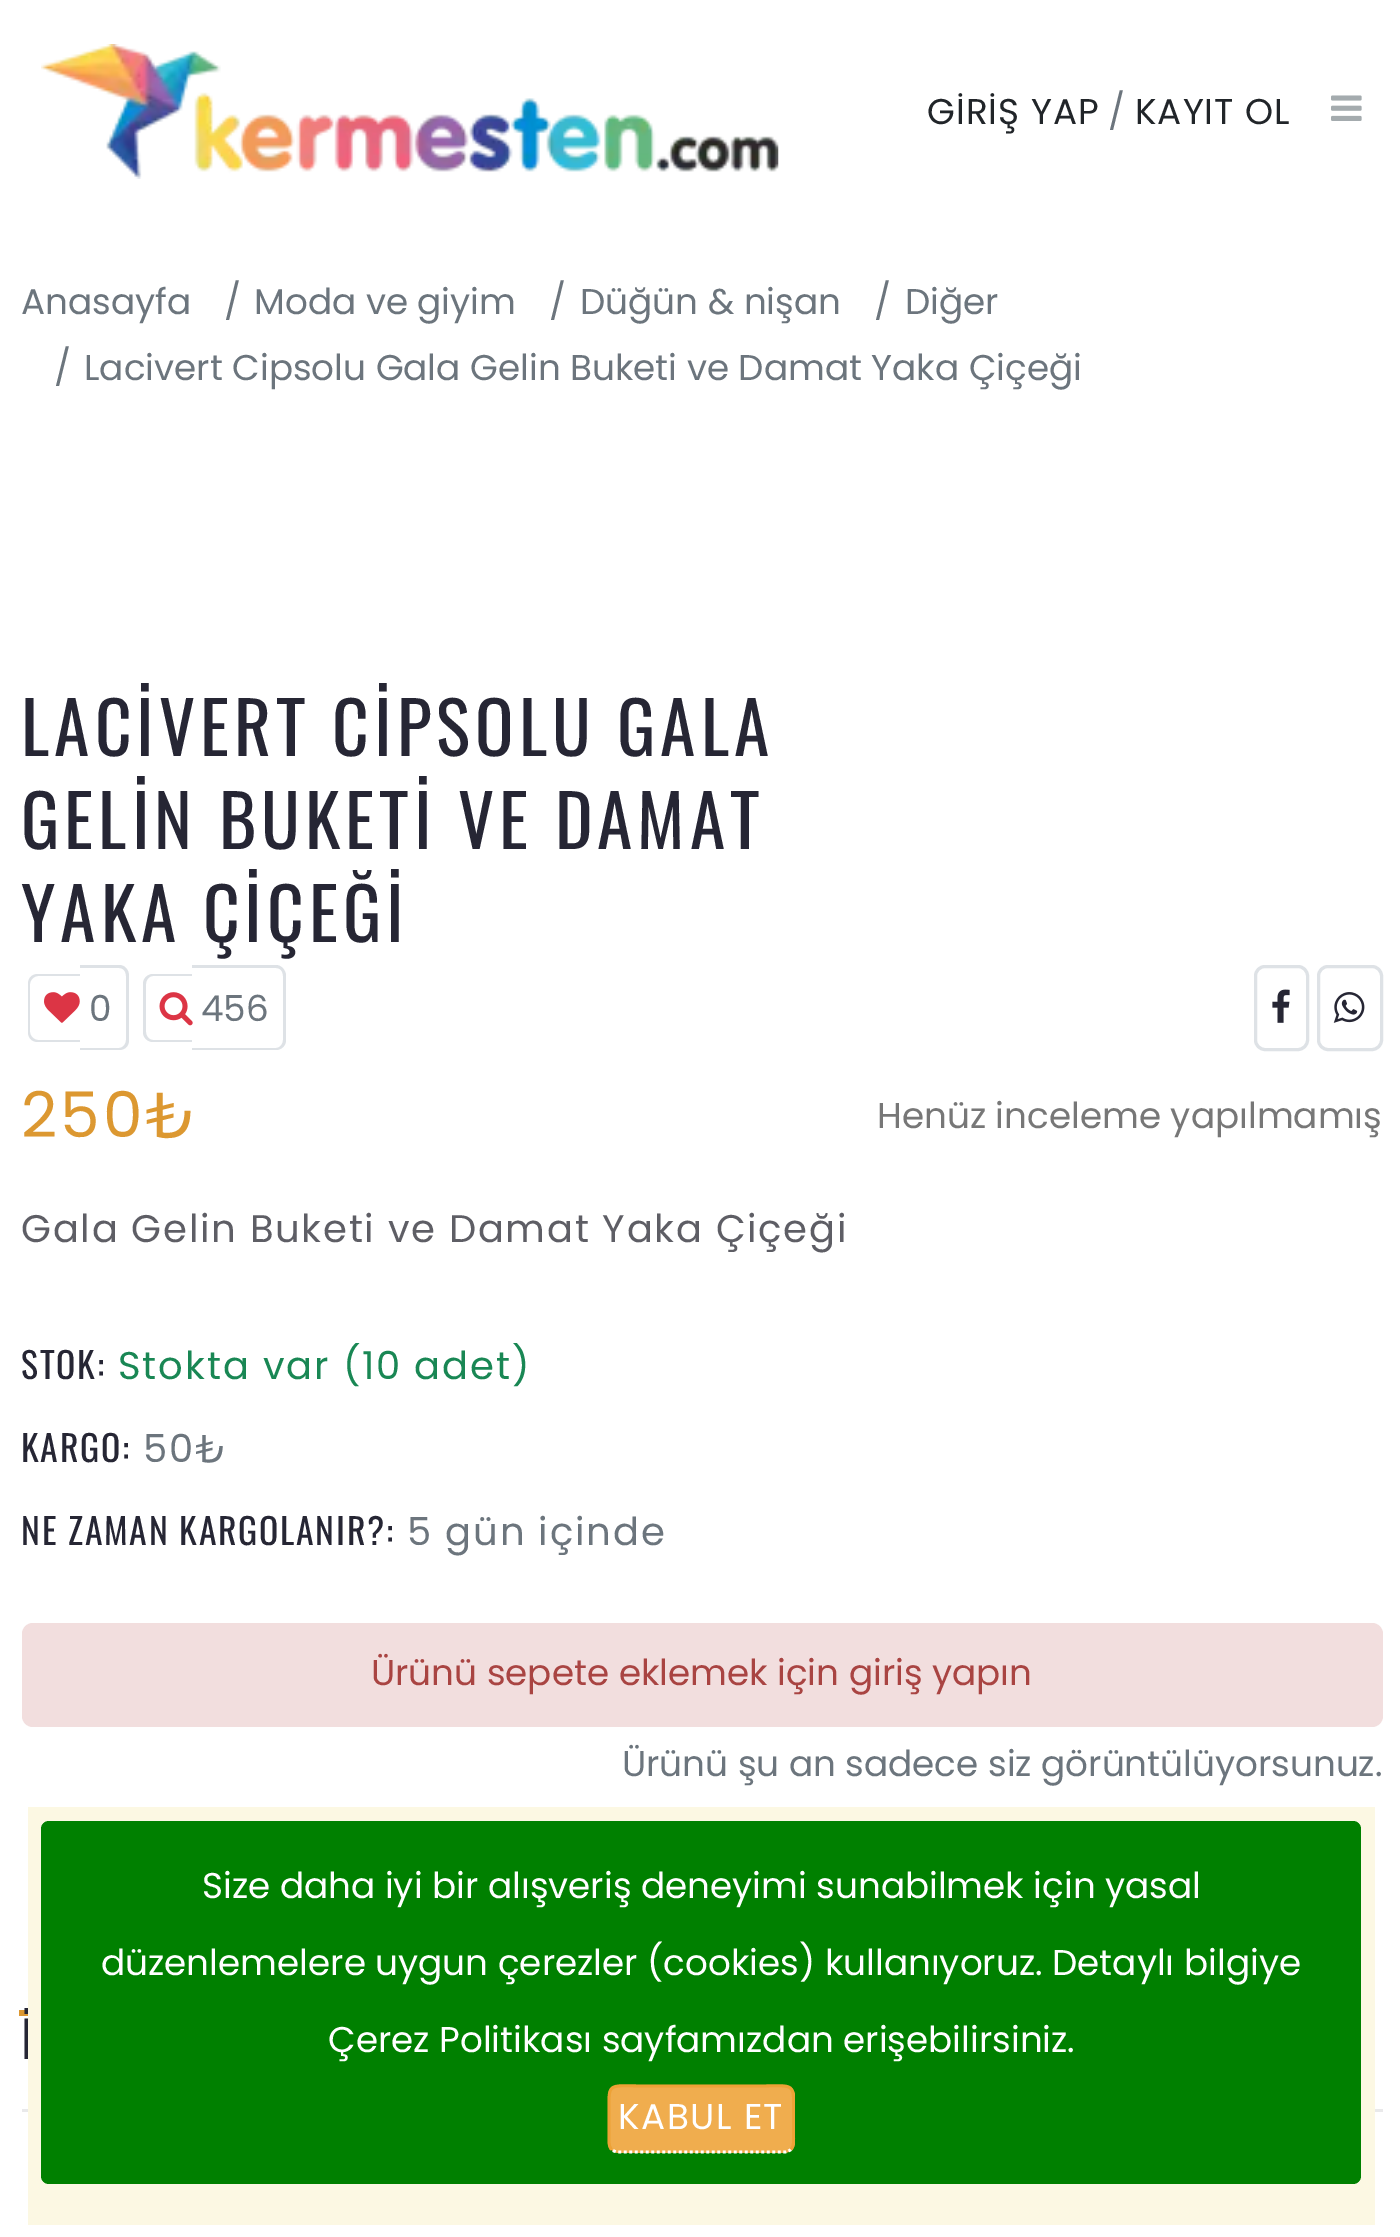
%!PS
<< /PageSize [1400 2237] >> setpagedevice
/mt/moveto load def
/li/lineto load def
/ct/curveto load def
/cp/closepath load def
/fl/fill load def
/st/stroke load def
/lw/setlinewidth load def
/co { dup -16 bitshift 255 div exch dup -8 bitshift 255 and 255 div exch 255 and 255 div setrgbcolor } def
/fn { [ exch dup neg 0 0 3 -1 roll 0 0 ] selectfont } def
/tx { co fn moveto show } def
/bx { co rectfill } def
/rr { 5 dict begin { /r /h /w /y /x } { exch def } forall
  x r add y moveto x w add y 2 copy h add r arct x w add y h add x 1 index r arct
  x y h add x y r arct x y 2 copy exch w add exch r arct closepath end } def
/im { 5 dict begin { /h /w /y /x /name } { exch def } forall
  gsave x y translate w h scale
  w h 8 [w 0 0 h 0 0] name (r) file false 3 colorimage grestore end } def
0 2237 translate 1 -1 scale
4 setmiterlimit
0 0 1400 2237 16#FFFFFF bx
(media/1.raw) 41 44 738 135 im
(media/2.raw) 1331 95 31 26 im
16#DEE2E6 co
38 974 mt 80 974 li 80 1042 li 38 1042 li 32 1042 28 1038 28 1032 ct 28 984 li 28 978 32 974 38 974 ct cp 38 976 mt 80 976 li 80 1040 li 38 1040 li 34 1040 30 1036 30 1032 ct 30 984 li 30 980 34 976 38 976 ct cp eofill
80 965 mt 119 965 li 125 965 129 970 129 976 ct 129 1040 li 129 1046 125 1050 119 1050 ct 80 1050 li cp 80 968 mt 119 968 li 123 968 126 971 126 976 ct 126 1040 li 126 1044 123 1048 119 1048 ct 80 1048 li cp eofill
(media/3.raw) 44 992 36 31 im
153 974 mt 192 974 li 192 1042 li 153 1042 li 148 1042 143 1038 143 1032 ct 143 984 li 143 978 148 974 153 974 ct cp 153 976 mt 192 976 li 192 1040 li 153 1040 li 149 1040 146 1036 146 1032 ct 146 984 li 146 980 149 976 153 976 ct cp eofill
192 965 mt 276 965 li 281 965 286 970 286 976 ct 286 1040 li 286 1046 281 1050 276 1050 ct 192 1050 li cp 192 968 mt 276 968 li 280 968 283 971 283 976 ct 283 1040 li 283 1044 280 1048 276 1048 ct 192 1048 li cp eofill
(media/4.raw) 159 992 34 34 im
3 lw
1255.5 966.5 52 83 9.5 rr st
(media/5.raw) 1272 989 18 34 im
1318.5 966.5 63 83 9.5 rr st
(media/6.raw) 1333 992 32 31 im
16#F2DEDE co
22 1623 1361 104 11 rr fl
22 2109 1361 3 16#E9E9EA bx
19 2010 9 6 16#DC9831 bx
/Poppins-Regular 35.75 fn
16#212529 co
927 124 mt 1 0 (GİRİŞ YAP) ashow
(/) 1108 124 /Poppins-Regular 35.75 16#6C757D tx
16#212529 co
1135 124 mt 1 0 (KAYIT OL) ashow
(Anasayfa) 21 314 /Poppins-Regular 35.75 16#6C757D tx
(/) 224 314 /Poppins-Regular 35.75 16#6C757D tx
(Moda ve giyim) 254 314 /Poppins-Regular 35.75 16#6C757D tx
(/) 549 314 /Poppins-Regular 35.75 16#6C757D tx
(Düğün & nişan) 580 314 /Poppins-Regular 35.75 16#6C757D tx
(/) 874 314 /Poppins-Regular 35.75 16#6C757D tx
(Diğer) 905 314 /Poppins-Regular 35.75 16#6C757D tx
(/) 54 380 /Poppins-Regular 35.75 16#6C757D tx
(Lacivert Cipsolu Gala Gelin Buketi ve Damat Yaka Çiçeği) 84 380 /Poppins-Regular 35.75 16#6C757D tx
/Oswald-Regular 71.5 fn
16#262634 co
21 756 mt 5 0 (LACİVERT CİPSOLU GALA) ashow
21 849 mt 5 0 (GELİN BUKETİ VE DAMAT) ashow
21 942 mt 5 0 (YAKA ÇİÇEĞİ) ashow
(0) 89 1021 /Poppins-Regular 35.75 16#6C757D tx
(456) 201 1021 /Poppins-Regular 35.75 16#6C757D tx
/Poppins-Regular 63 fn
16#DC9831 co
21 1137 mt 3 0 (250₺) ashow
(Henüz inceleme yapılmamış) 877 1128 /Poppins-Regular 35.75 16#777777 tx
/Poppins-Regular 38.5 fn
16#5E5E65 co
21 1242 mt 1.75 0 (Gala Gelin Buketi ve Damat Yaka Çiçeği) ashow
/Oswald-Regular 35.75 fn
16#262634 co
21 1379 mt 1.75 0 (STOK:) ashow
/Poppins-Regular 38.5 fn
16#198754 co
118 1379 mt 1.9 0 (Stokta var \(10 adet\)) ashow
/Oswald-Regular 35.75 fn
16#262634 co
21 1462 mt 1.75 0 (KARGO:) ashow
/Poppins-Regular 38.5 fn
16#6C757D co
143 1462 mt 1.9 0 (50₺) ashow
/Oswald-Regular 35.75 fn
16#262634 co
21 1545 mt 1.75 0 (NE ZAMAN KARGOLANIR?:) ashow
/Poppins-Regular 38.5 fn
16#6C757D co
407 1545 mt 1.9 0 (5 gün içinde) ashow
(Ürünü sepete eklemek için giriş yapın) 371 1685 /Poppins-Regular 35.75 16#A94442 tx
(Ürünü şu an sadece siz görüntülüyorsunuz.) 622 1776 /Poppins-Regular 35.75 16#6C757D tx
/Oswald-Regular 50 fn
16#262634 co
21 2059 mt 4 0 (İ) ashow
28 1807 1347 418 16#FCF8E3 bx
16#008000 co
41 1821 1320 363 8 rr fl
(Size daha iyi bir alışveriş deneyimi sunabilmek için yasal) 202 1898 /Poppins-Regular 35.75 16#FFFFFF tx
(düzenlemelere uygun çerezler \(cookies\) kullanıyoruz. Detaylı bilgiye) 101 1975 /Poppins-Regular 35.75 16#FFFFFF tx
(Çerez Politikası sayfamızdan erişebilirsiniz.) 328 2052 /Poppins-Regular 35.75 16#FFFFFF tx
16#F0AD4E co
608 2085 187 68 11 rr fl
16#FFFFFF co
2.8 lw
[2.75 2.75] 0 setdash
791 2149.5 mt 789 2151 787 2152 784.5 2152 ct 618 2152 li 615.5 2152 613.5 2151 611.5 2149.5 ct st
16#EEA236 co
[] 0 setdash
611.5 2149.5 mt 608 2145.5 609 2139.5 609 2135 ct 609 2119 li 609 2080.5 605 2086 646 2086 ct 756.5 2086 li 797.5 2086 793.5 2080.5 793.5 2119 ct 793.5 2135 li 793.5 2139.5 794.5 2145.5 791 2149.5 ct st
16#FFFFFF co
618 2129 mt 1.5 0 (KABUL ET) ashow
showpage
